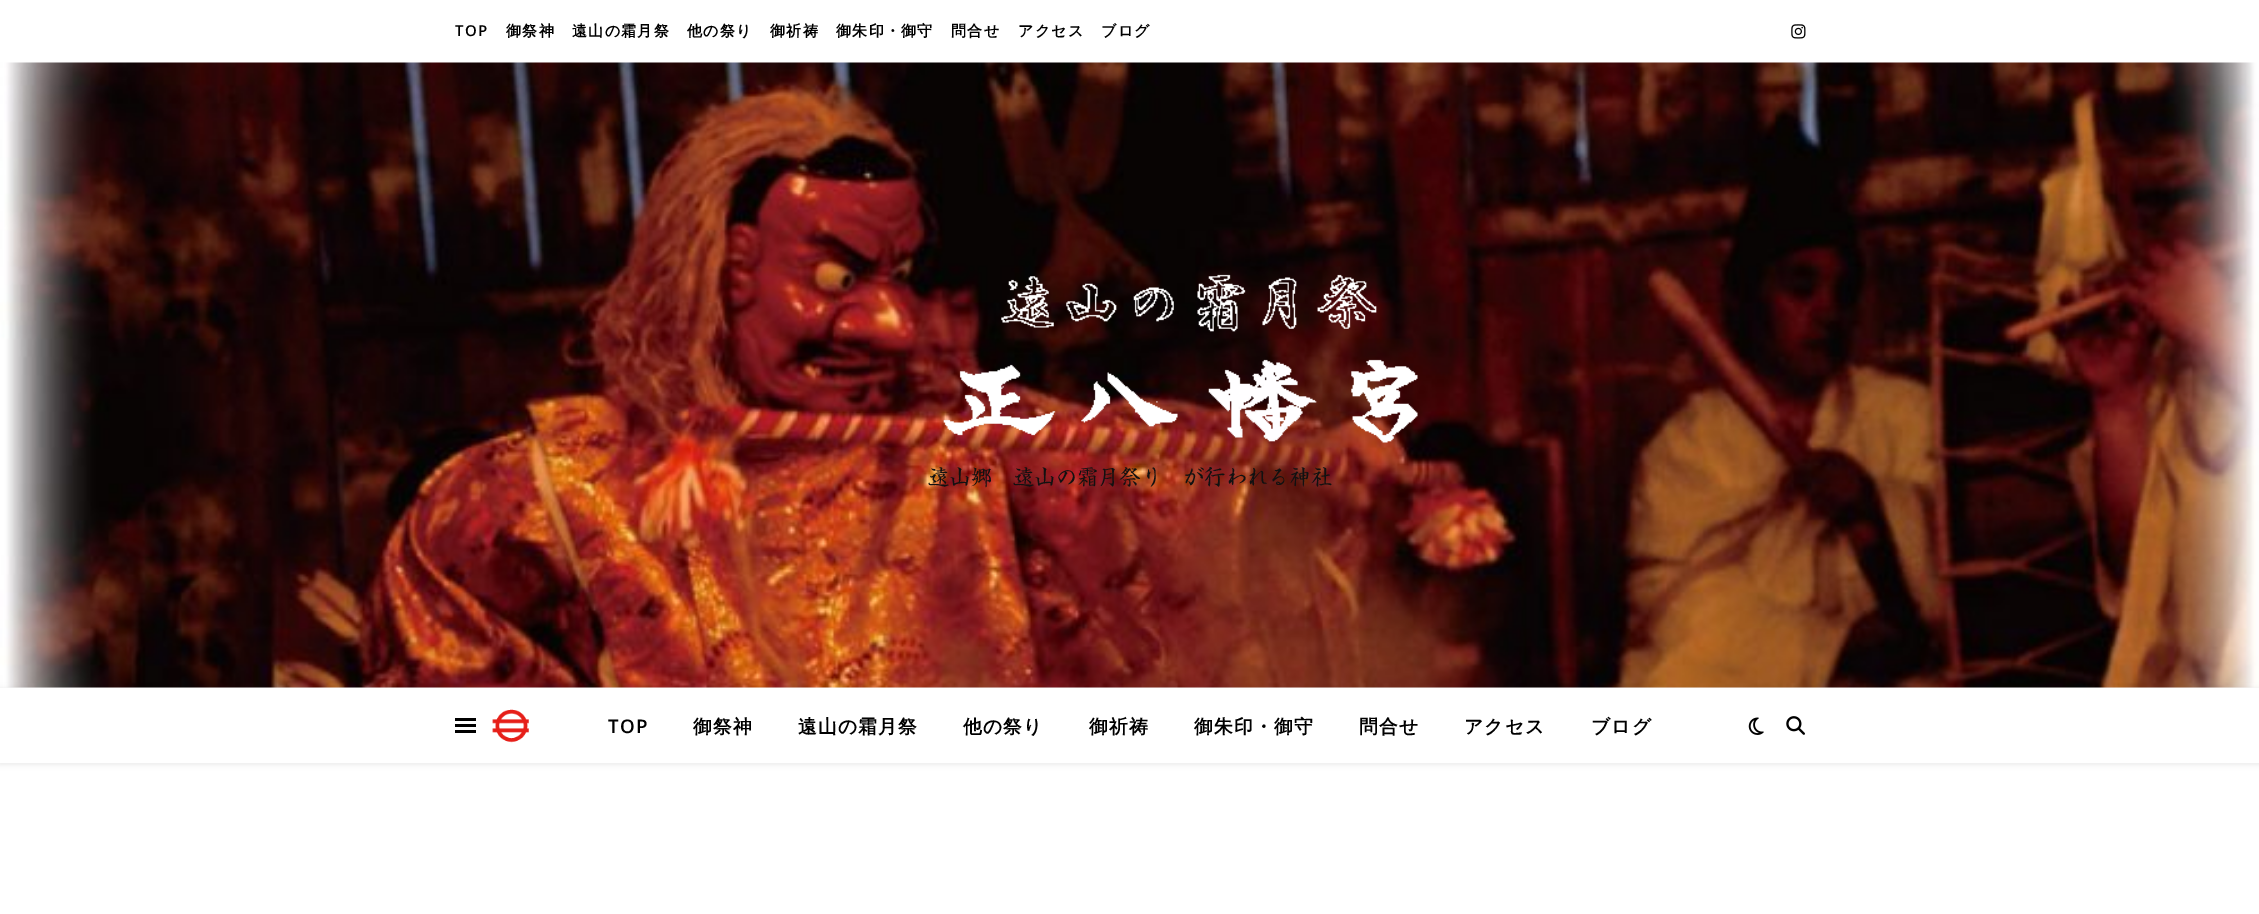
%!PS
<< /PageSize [2259 914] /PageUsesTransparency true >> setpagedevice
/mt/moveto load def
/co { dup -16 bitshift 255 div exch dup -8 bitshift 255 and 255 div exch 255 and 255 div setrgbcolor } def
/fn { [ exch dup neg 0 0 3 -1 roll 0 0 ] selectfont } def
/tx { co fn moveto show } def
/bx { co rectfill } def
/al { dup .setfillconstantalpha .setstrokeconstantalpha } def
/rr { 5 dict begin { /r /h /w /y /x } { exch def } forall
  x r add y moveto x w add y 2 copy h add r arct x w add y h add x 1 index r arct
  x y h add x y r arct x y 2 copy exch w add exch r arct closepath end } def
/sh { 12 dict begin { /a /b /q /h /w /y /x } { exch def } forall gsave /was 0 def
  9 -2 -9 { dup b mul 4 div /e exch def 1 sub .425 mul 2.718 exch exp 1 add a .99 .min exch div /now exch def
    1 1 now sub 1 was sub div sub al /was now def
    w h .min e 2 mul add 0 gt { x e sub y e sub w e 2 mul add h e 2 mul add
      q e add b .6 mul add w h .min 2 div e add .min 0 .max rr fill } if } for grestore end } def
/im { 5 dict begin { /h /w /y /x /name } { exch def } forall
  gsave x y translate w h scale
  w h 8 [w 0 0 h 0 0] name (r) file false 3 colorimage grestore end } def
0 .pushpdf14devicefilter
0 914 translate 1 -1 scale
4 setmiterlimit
0 0 2259 914 16#FFFFFF bx
(media/1.raw) 1791 24 15 15 im
(media/2.raw) 0 62 2259 626 im
(media/3.raw) 943 274 475 169 im
16#000000 co
0 689 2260 75 0 3 .1 sh
0 688 2259 75 16#FFFFFF bx
455 718 21 3 16#000000 bx
455 724 21 3 16#000000 bx
455 730 21 3 16#000000 bx
(media/4.raw) 492 709 37 34 im
(media/5.raw) 1748 717 16 18 im
(media/6.raw) 1786 716 19 19 im
/OpenSans-SemiBold 15 fn
455 36 mt 1.25 0 (TOP) ashow
/WenQuanYiZenHei-Bold 15 fn
506 36 mt 1.25 0 (御祭神) ashow
572 36 mt 1.25 0 (遠山の霜月祭) ashow
687 36 mt 1.25 0 (他の祭り) ashow
770 36 mt 1.25 0 (御祈祷) ashow
836 36 mt 1.25 0 (御朱印・御守) ashow
951 36 mt 1.25 0 (問合せ) ashow
1018 36 mt 1.25 0 (アクセス) ashow
1101 36 mt 1.25 0 (ブログ) ashow
(遠山郷　遠山の霜月祭り　が行われる神社) 928 485 /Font-Regular 21.25 16#111111 tx
/OpenSans-SemiBold 18.75 fn
16#000000 co
608 733 mt 1.25 0 (TOP) ashow
/WenQuanYiZenHei-Bold 18.75 fn
693 733 mt 1.25 0 (御祭神) ashow
798 733 mt 1.25 0 (遠山の霜月祭) ashow
963 733 mt 1.25 0 (他の祭り) ashow
1089 733 mt 1.25 0 (御祈祷) ashow
1194 733 mt 1.25 0 (御朱印・御守) ashow
1359 733 mt 1.25 0 (問合せ) ashow
1464 733 mt 1.25 0 (アクセス) ashow
1591 733 mt 1.25 0 (ブログ) ashow
.poppdf14devicefilter showpage
